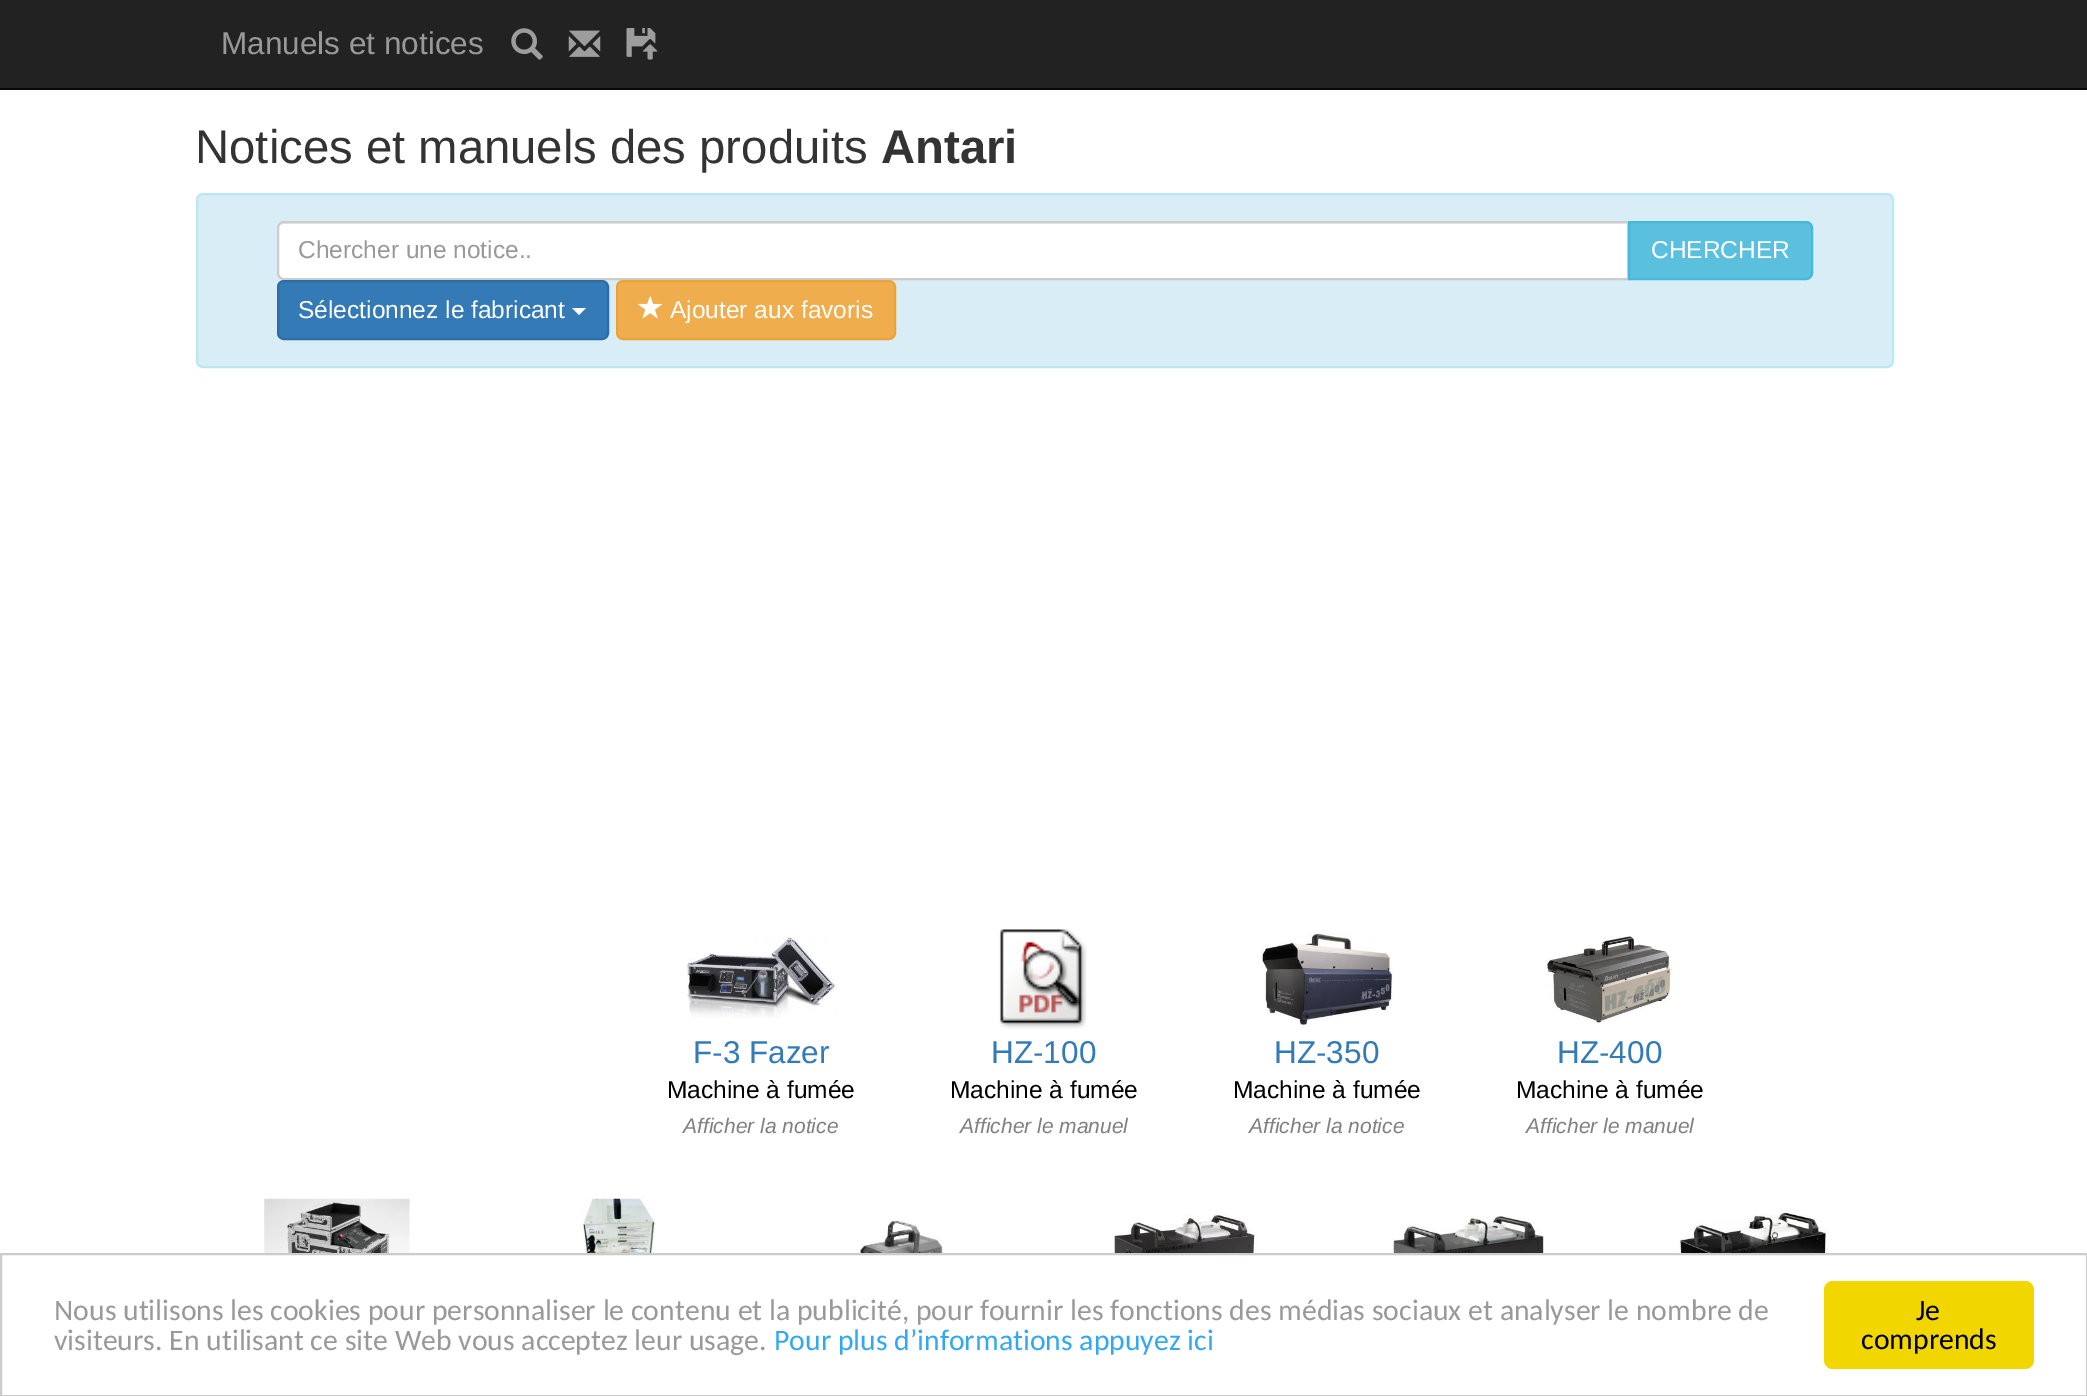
%!PS
<< /PageSize [2087 1396] >> setpagedevice
/mt/moveto load def
/li/lineto load def
/ct/curveto load def
/cp/closepath load def
/fl/fill load def
/st/stroke load def
/gs/gsave load def
/gr/grestore load def
/lw/setlinewidth load def
/co { dup -16 bitshift 255 div exch dup -8 bitshift 255 and 255 div exch 255 and 255 div setrgbcolor } def
/fn { [ exch dup neg 0 0 3 -1 roll 0 0 ] selectfont } def
/tx { co fn moveto show } def
/bx { co rectfill } def
/rr { 5 dict begin { /r /h /w /y /x } { exch def } forall
  x r add y moveto x w add y 2 copy h add r arct x w add y h add x 1 index r arct
  x y h add x y r arct x y 2 copy exch w add exch r arct closepath end } def
/im { 5 dict begin { /h /w /y /x /name } { exch def } forall
  gsave x y translate w h scale
  w h 8 [w 0 0 h 0 0] name (r) file false 3 colorimage grestore end } def
0 1396 translate 1 -1 scale
4 setmiterlimit
0 0 2087 1396 16#FFFFFF bx
0 0 2087 88 16#222222 bx
0 88 2087 2 16#080808 bx
(media/1.raw) 511 28 32 32 im
(media/2.raw) 568 30 33 27 im
(media/3.raw) 626 28 32 32 im
16#D9EDF7 co
197 194 1696 173 6 rr gs fl gr
16#BCE8F1 co
2 lw
st
16#FFFFFF co
284 221 mt 1629 221 li 1629 280 li 284 280 li 280 280 277 277 277 273 ct 277 228 li 277 224 280 221 284 221 ct cp fl
16#ECECEC co
284 224 mt 1628 224 li 1628 222 li 283 222 li 279 222 278 226 278 229 ct 278 226 281 224 284 224 ct cp fl
16#CCCCCC co
284 222 mt 1628 222 li 1628 279 li 284 279 li 280.5 279 278 276.5 278 273 ct 278 228 li 278 224.5 280.5 222 284 222 ct cp st
16#5BC0DE co
1629 222 mt 1806 222 li 1809.5 222 1812 224.5 1812 228 ct 1812 273 li 1812 276.5 1809.5 279 1806 279 ct 1629 279 li cp gs fl gr
16#46B8DA co
st
16#337AB7 co
278 281 330 58 6 rr gs fl gr
16#2E6DA4 co
st
16#FFFFFF co
572 308 mt 586 308 li 579 315 li cp fl
16#F0AD4E co
617 281 278 58 6 rr gs fl gr
16#EEA236 co
st
(media/4.raw) 638 296 25 23 im
(media/5.raw) 686 937 153 81 im
(media/6.raw) 999 929 88 100 im
(media/7.raw) 1262 932 132 93 im
(media/8.raw) 1546 936 127 87 im
(media/9.raw) 264 1198 146 55 im
(media/10.raw) 582 1198 74 55 im
(media/11.raw) 859 1220 84 33 im
(media/12.raw) 1113 1214 144 39 im
(media/13.raw) 1391 1216 153 37 im
(media/14.raw) 1678 1210 151 43 im
16#CCCCCC co
1 1254 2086 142 rectstroke
16#F1D600 co
1824 1281 210 88 9 rr fl
(Manuels et notices) 221 54 /LiberationSans-Regular 31.5 16#999999 tx
(Notices et manuels des produits) 195 163 /LiberationSans-Regular 47.25 16#333333 tx
(Antari) 881 163 /LiberationSans-Bold 47.25 16#333333 tx
(Chercher une notice..) 298 258 /LiberationSans-Regular 24.5 16#999999 tx
(CHERCHER) 1651 258 /LiberationSans-Regular 24.5 16#FFFFFF tx
(Sélectionnez le fabricant) 298 318 /LiberationSans-Regular 24.5 16#FFFFFF tx
(Ajouter aux favoris) 670 318 /LiberationSans-Regular 24.5 16#FFFFFF tx
(F-3 Fazer) 693 1063 /LiberationSans-Regular 31.5 16#337AB7 tx
(Machine à fumée) 667 1098 /LiberationSans-Regular 24.5 16#000000 tx
(Afficher la notice) 683 1133 /LiberationSans-Italic 21 16#808080 tx
(HZ-100) 991 1063 /LiberationSans-Regular 31.5 16#337AB7 tx
(Machine à fumée) 950 1098 /LiberationSans-Regular 24.5 16#000000 tx
(Afficher le manuel) 960 1133 /LiberationSans-Italic 21 16#808080 tx
(HZ-350) 1274 1063 /LiberationSans-Regular 31.5 16#337AB7 tx
(Machine à fumée) 1233 1098 /LiberationSans-Regular 24.5 16#000000 tx
(Afficher la notice) 1249 1133 /LiberationSans-Italic 21 16#808080 tx
(HZ-400) 1557 1063 /LiberationSans-Regular 31.5 16#337AB7 tx
(Machine à fumée) 1516 1098 /LiberationSans-Regular 24.5 16#000000 tx
(Afficher le manuel) 1526 1133 /LiberationSans-Italic 21 16#808080 tx
(Nous utilisons les cookies pour personnaliser le contenu et la publicité, pour fournir les fonctions des médias sociaux et analyser le nombre de) 54 1320 /Carlito-Regular 29.75 16#999999 tx
(visiteurs. En utilisant ce site Web vous acceptez leur usage.) 54 1350 /Carlito-Regular 29.75 16#999999 tx
(Pour plus d’informations appuyez ici) 774 1350 /Carlito-Regular 29.75 16#31A8F0 tx
(Je) 1916 1320 /Carlito-Regular 29.75 16#000000 tx
(comprends) 1861 1349 /Carlito-Regular 29.75 16#000000 tx
showpage
